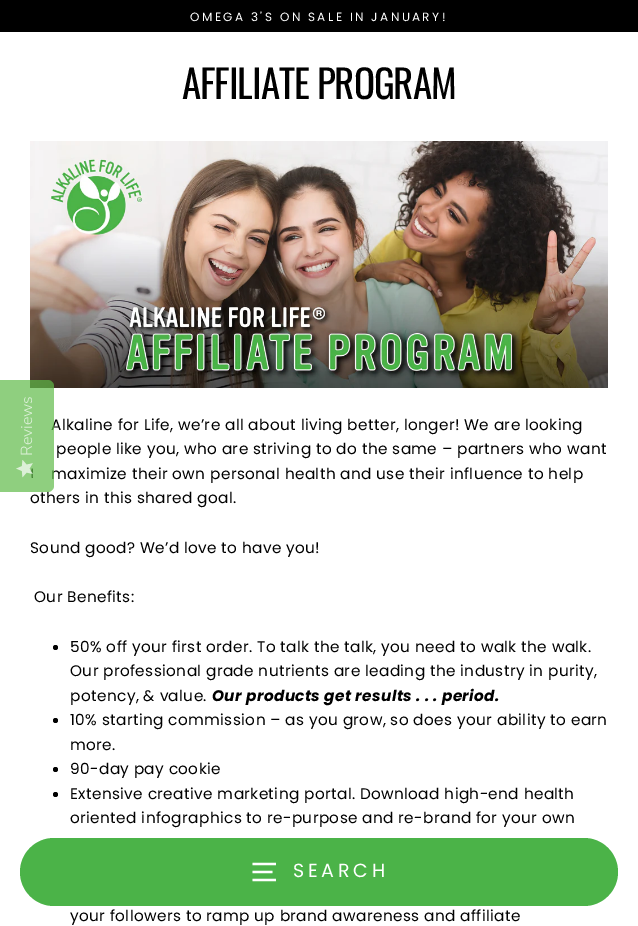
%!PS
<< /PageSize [638 926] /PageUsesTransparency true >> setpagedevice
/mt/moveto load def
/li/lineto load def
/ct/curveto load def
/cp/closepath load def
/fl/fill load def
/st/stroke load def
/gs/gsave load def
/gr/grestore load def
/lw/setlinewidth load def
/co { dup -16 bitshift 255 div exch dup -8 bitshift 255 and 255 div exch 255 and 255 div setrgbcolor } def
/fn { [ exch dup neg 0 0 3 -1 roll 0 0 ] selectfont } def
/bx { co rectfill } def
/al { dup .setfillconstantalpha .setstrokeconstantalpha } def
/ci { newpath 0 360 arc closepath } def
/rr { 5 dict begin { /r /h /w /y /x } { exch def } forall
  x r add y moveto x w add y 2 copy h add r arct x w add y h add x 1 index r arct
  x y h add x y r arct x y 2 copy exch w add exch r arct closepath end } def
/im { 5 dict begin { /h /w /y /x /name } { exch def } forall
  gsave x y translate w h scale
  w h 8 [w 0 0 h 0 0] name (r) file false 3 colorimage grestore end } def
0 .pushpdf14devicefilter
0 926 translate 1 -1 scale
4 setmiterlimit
0 0 638 926 16#FFFFFF bx
0 0 638 32 16#000000 bx
16#4BB348 co
20 838 598 68 34 rr fl
16#FFFFFF co
2.3 lw
252.5 864 mt 276 864 li 252.5 872 mt 272.5 872 li 252.5 880 mt 276 880 li st
(media/2.raw) 30 141 578 247 im
16#000000 co
55.5 647.5 2.5 ci fl
55.5 720.5 2.5 ci fl
55.5 769.5 2.5 ci fl
55.5 794.5 2.5 ci fl
/Poppins-Regular 12 fn
16#FFFFFF co
190 21 mt 2.4 0 (OMEGA 3'S ON SALE IN JANUARY!) ashow
/Poppins-Regular 19 fn
293 877 mt 3.75 0 (SEARCH) ashow
/Oswald-Regular 39 fn
16#000000 co
182 99 mt -1 0 (AFFILIATE PROGRAM) ashow
/Poppins-Regular 15.3 fn
51 430 mt .38 0 (Alkaline for Life, we’re all about living better, longer! We are looking) ashow
56 454 mt .38 0 (people like you, who are striving to do the same – partners who want) ashow
51 479 mt .38 0 (maximize their own personal health and use their influence to help) ashow
30 503 mt .38 0 (others in this shared goal.) ashow
0.7 al
16#5FBA48 co
0 492 mt 0 380 li 48 380 li 51 380 54 383 54 386 ct 54 486 li 54 489 51 492 48 492 ct cp fl
1 al
(media/1.raw) 16 460 17 18 im
/NunitoSans-Light 16 fn
16#DCF0D8 co
gs 32 456 translate -90 rotate 0 0 mt (Reviews) show gr
/Poppins-Regular 15.3 fn
16#000000 co
30 553 mt .38 0 (Sound good? We’d love to have you!) ashow
34 602 mt .38 0 (Our Benefits:) ashow
70 652 mt .38 0 (50% off your first order. To talk the talk, you need to walk the walk.) ashow
70 676 mt .38 0 (Our professional grade nutrients are leading the industry in purity,) ashow
70 701 mt .38 0 (potency, & value.) ashow
/Poppins-BoldItalic 15.3 fn
212 701 mt .38 0 (Our products get results . . . period.) ashow
/Poppins-Regular 15.3 fn
70 725 mt .38 0 (10% starting commission – as you grow, so does your ability to earn) ashow
70 750 mt .38 0 (more.) ashow
70 774 mt .38 0 (90-day pay cookie) ashow
70 799 mt .38 0 (Extensive creative marketing portal. Download high-end health) ashow
70 823 mt .38 0 (oriented infographics to re-purpose and re-brand for your own) ashow
70 921 mt .38 0 (your followers to ramp up brand awareness and affiliate) ashow
.poppdf14devicefilter showpage
